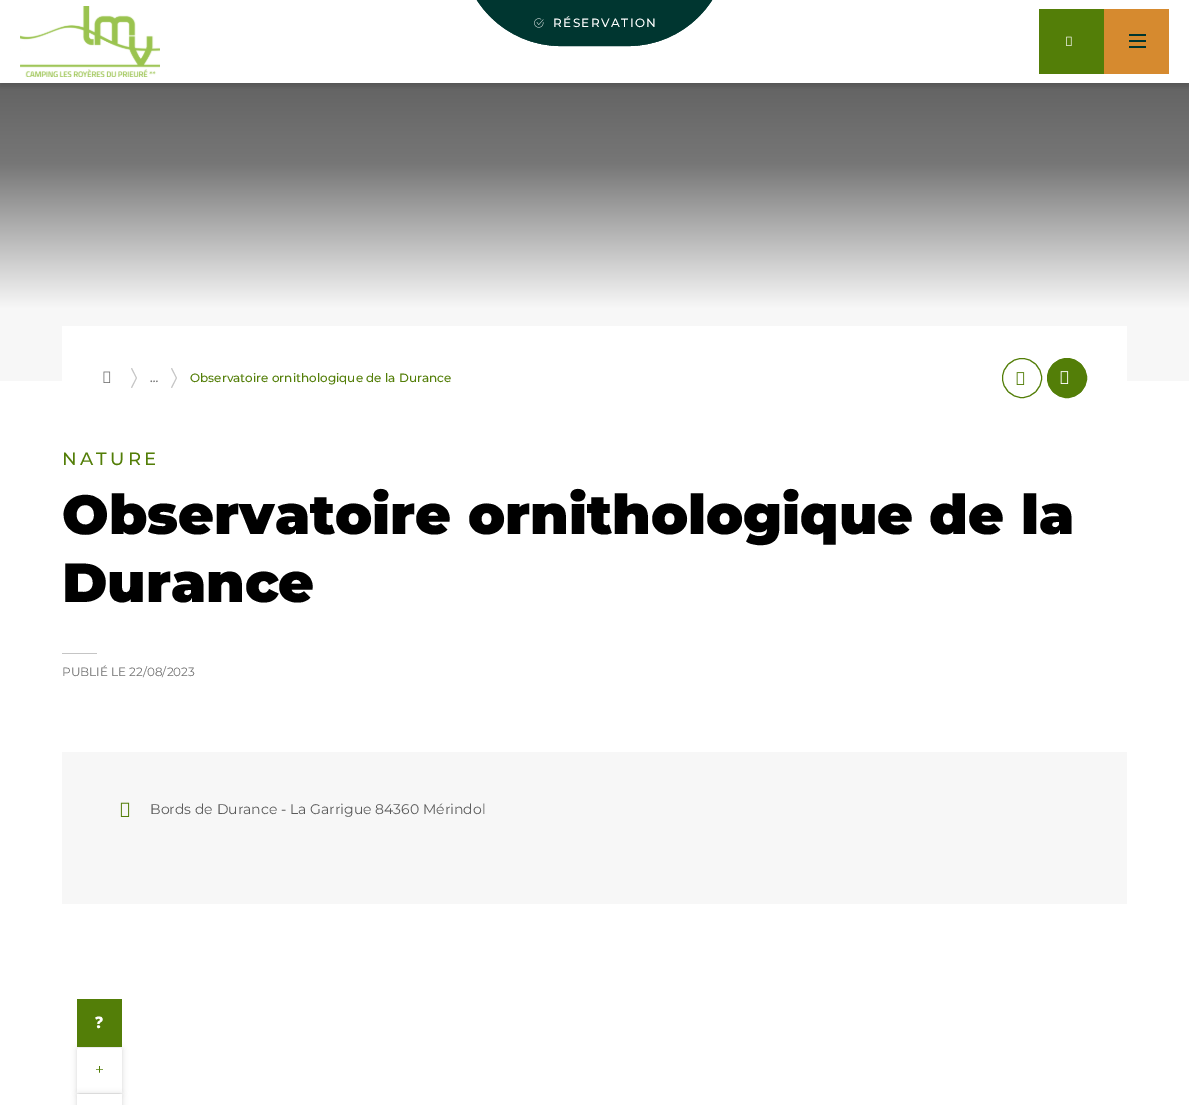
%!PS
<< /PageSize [1189 1105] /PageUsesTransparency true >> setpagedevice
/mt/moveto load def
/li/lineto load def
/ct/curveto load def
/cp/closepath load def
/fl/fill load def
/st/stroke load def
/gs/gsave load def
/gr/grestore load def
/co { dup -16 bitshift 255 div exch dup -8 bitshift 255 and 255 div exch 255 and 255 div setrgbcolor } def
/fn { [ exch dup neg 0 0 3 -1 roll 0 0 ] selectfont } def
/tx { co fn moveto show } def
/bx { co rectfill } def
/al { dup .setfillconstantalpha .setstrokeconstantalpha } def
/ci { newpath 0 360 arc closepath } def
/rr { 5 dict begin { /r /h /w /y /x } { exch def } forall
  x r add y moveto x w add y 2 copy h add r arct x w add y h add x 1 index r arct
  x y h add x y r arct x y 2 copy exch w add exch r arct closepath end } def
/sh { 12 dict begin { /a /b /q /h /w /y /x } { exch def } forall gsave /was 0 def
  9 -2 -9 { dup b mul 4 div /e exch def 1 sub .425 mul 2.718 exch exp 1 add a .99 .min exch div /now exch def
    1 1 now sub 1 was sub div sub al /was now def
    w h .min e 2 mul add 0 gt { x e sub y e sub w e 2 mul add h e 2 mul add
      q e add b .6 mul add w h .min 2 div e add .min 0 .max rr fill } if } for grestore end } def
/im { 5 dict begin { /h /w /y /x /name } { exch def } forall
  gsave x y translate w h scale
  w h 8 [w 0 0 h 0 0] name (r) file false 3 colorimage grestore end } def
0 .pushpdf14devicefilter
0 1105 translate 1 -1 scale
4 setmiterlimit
0 0 1189 1105 16#FFFFFF bx
gs 0 83 mt 1189 83 li 1189 309 li 0 309 li cp clip newpath
<< /ShadingType 2 /ColorSpace /DeviceRGB /Coords [595 309 595 83] /Extend [true true] /Function << /FunctionType 3 /Domain [0 1] /Functions [<< /FunctionType 2 /Domain [0 1] /C0 [.973 .973 .973] /C1 [.467 .467 .467] /N 1 >> << /FunctionType 2 /Domain [0 1] /C0 [.467 .467 .467] /C1 [.388 .388 .388] /N 1 >>] /Bounds [.64] /Encode [0 1 0 1] >> >> shfill gr
gs
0 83 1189 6 rectclip
16#000000 co
0 3 1189 83 0 3 .16 sh
gr
(media/1.raw) 20 6 140 71 im
16#003630 co
461 0 mt 728 0 li 728 -54 li 728 1 683 46 628 46 ct 561 46 li 506 46 461 1 461 -54 ct cp fl
461.5 -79.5 mt 727.5 -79.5 li 727.5 -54 li 727.5 1 683 45.5 628 45.5 ct 561 45.5 li 506 45.5 461.5 1 461.5 -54 ct cp st
(media/2.raw) 534 18 10 10 im
1039 9 65 65 16#537E08 bx
(media/3.raw) 1066 36 6 10 im
1104 9 65 65 16#D68A2F bx
1129 34 17 2 16#003630 bx
1129 40 17 2 16#003630 bx
1129 46 17 2 16#003630 bx
0 309 1189 72 16#F7F7F7 bx
62 326 1065 55 16#FFFFFF bx
(media/4.raw) 103 371 8 12 im
16#C5C5C5 co
132 388 mt 131 387.5 li 136 378 li 131 368.5 li 132 368 li 137 378 li cp fl
172 388 mt 171 387.5 li 176 378 li 171 368.5 li 172 368 li 177 378 li cp fl
16#537E08 co
1022 378 19.5 ci st
(media/5.raw) 1016 372 9 13 im
1067 378 19.5 ci gs fl gr
st
(media/6.raw) 1060 371 9 13 im
62 653 35 1 16#C5C5C5 bx
62 752 1065 152 16#F7F7F7 bx
(media/7.raw) 120 802 10 15 im
16#000000 co
77 1048 45 45 2 3 .16 sh
77 999 45 48 16#537E08 bx
16#FFFFFF co
79 1048 mt 120 1048 li 121 1048 122 1049 122 1050 ct 122 1093 li 77 1093 li 77 1050 li 77 1049 78 1048 79 1048 ct cp fl
16#000000 co
77 1094 45 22 2 3 .16 sh
77 1094 45 11 16#FFFFFF bx
/Montserrat-Medium 12 fn
553 27 mt 1.4 0 (RÉSERVATION) ashow
(…) 150 382 /Montserrat-Medium 12 16#707070 tx
(Observatoire ornithologique de la Durance) 190 382 /Montserrat-Medium 12 16#537E08 tx
/Montserrat-Medium 18 fn
62 465 mt 3.25 0 (NATURE) ashow
(Observatoire ornithologique de la) 62 534 /Montserrat-Black 55 16#000000 tx
(Durance) 62 602 /Montserrat-Black 55 16#000000 tx
(PUBLIÉ LE 22/08/2023) 62 676 /Montserrat-Regular 12 16#707070 tx
(Bords de Durance - La Garrigue 84360 Mérindol) 150 814 /Montserrat-Regular 14 16#5A5A5A tx
(?) 95 1028 /NotoSans-Black 16 16#FFFFFF tx
(+) 95 1075 /Montserrat-Regular 16 16#537E08 tx
.poppdf14devicefilter showpage
